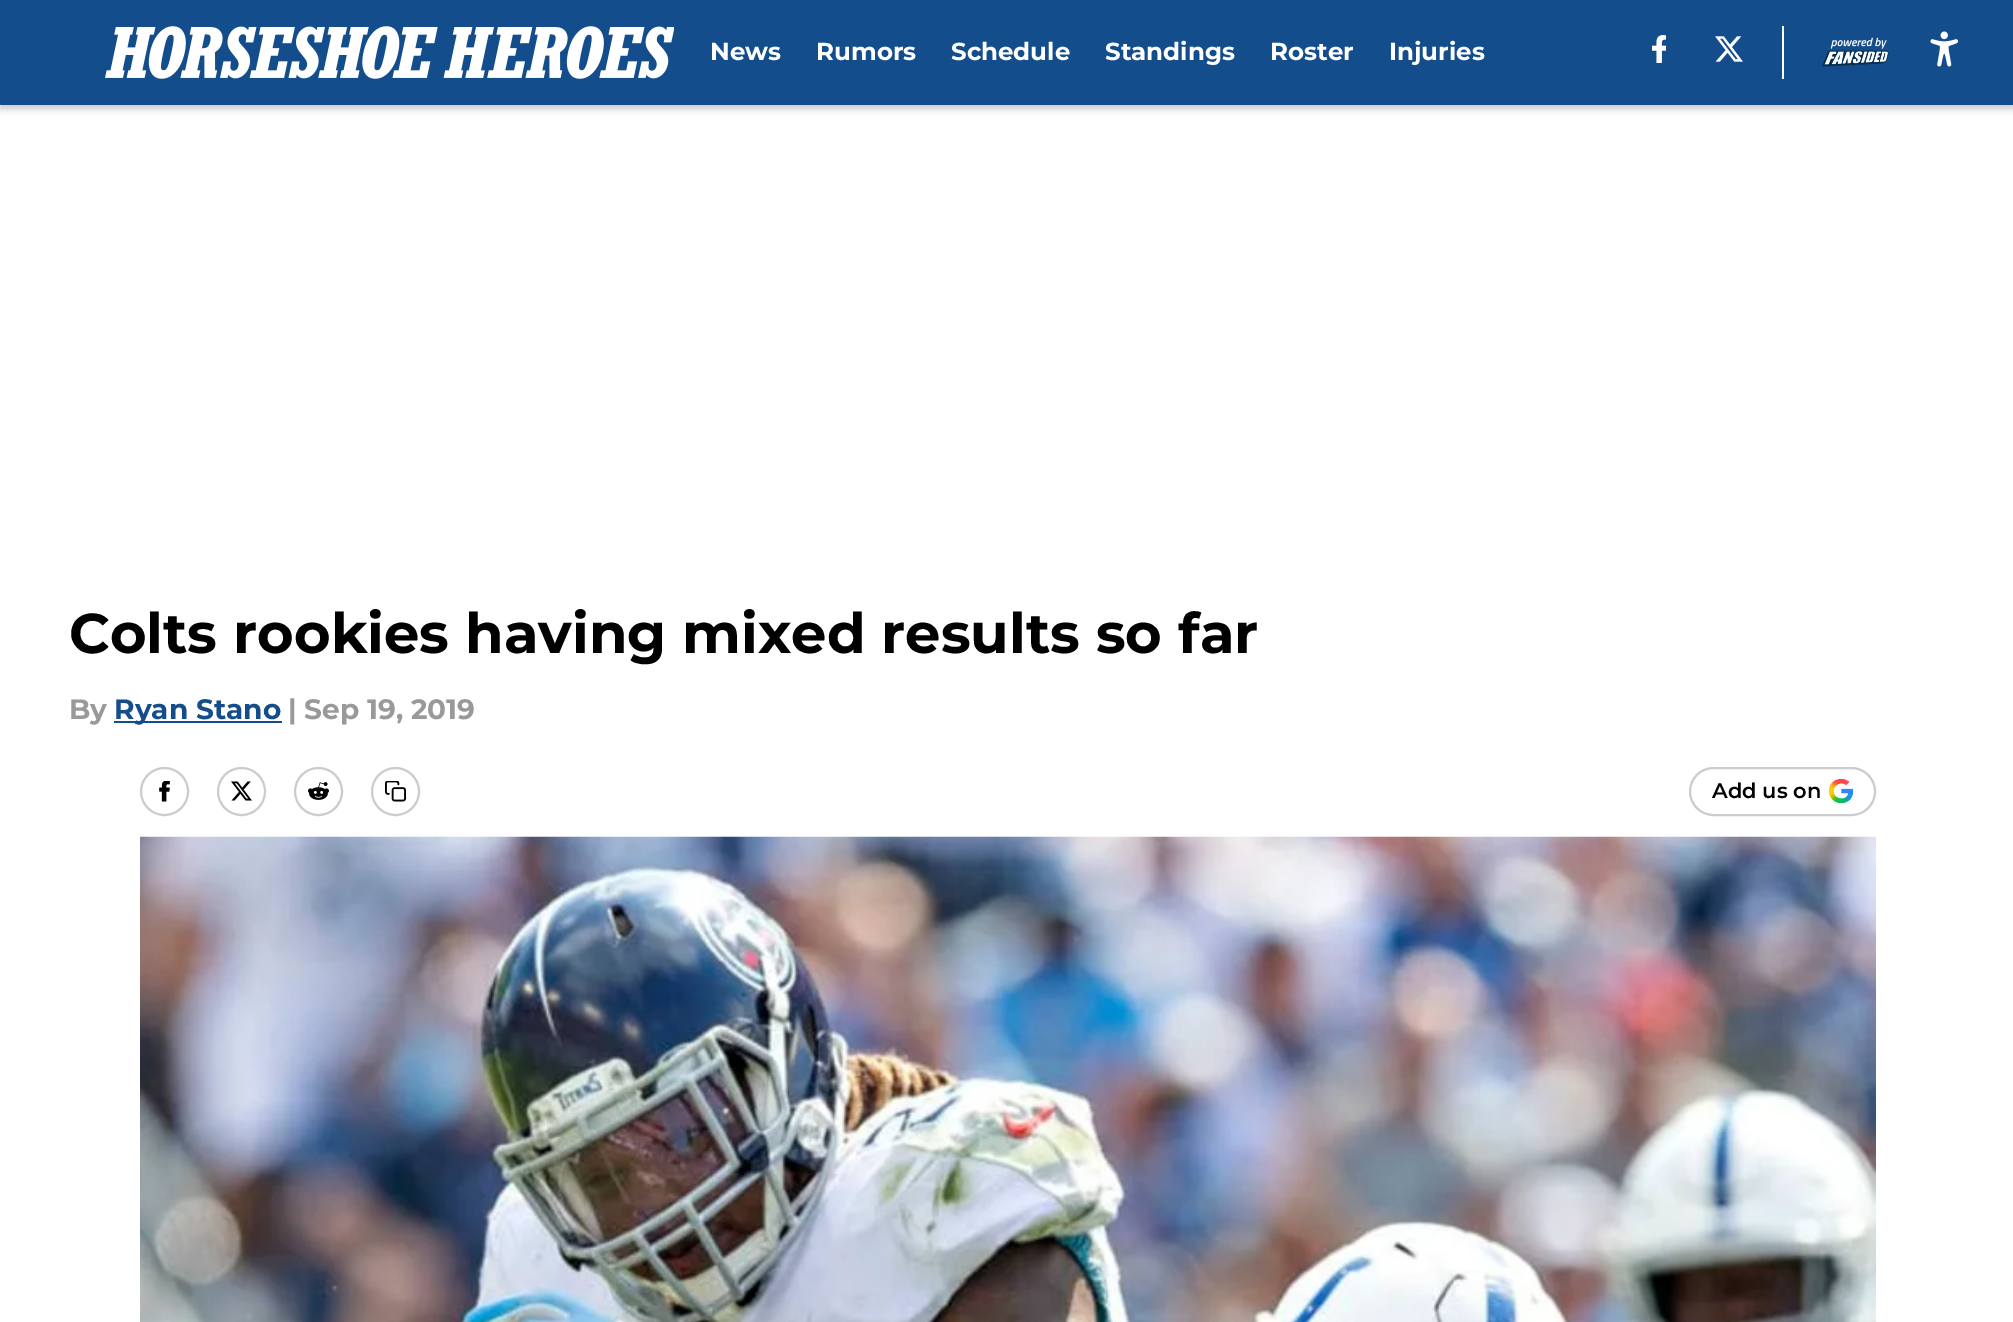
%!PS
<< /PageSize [2013 1322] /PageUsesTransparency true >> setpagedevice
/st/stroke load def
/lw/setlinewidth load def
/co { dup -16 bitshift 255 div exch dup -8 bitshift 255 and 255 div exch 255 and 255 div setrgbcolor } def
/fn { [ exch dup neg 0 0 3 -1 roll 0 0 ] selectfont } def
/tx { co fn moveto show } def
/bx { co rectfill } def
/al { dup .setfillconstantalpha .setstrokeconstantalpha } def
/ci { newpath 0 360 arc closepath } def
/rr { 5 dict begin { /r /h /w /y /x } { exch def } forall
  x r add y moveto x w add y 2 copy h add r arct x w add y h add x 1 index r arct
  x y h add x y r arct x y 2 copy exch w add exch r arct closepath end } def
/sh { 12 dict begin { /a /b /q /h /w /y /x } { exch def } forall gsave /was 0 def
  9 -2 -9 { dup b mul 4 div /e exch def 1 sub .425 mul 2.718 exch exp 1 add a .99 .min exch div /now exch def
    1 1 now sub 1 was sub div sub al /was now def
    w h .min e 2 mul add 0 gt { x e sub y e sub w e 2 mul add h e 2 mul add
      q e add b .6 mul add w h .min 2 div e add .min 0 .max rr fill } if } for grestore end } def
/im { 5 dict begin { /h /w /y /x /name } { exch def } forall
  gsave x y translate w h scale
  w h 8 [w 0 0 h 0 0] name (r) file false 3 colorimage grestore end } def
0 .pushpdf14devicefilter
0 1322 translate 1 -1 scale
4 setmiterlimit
0 0 2013 1322 16#FFFFFF bx
16#000000 co
0 4 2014 105 0 3.5 .2 sh
0 0 2013 105 16#144D8C bx
(media/1.raw) 105 26 569 53 im
(media/2.raw) 1652 35 14 28 im
(media/3.raw) 1715 36 28 26 im
1782 26 2 53 16#FFFFFF bx
(media/4.raw) 1822 37 67 30 im
(media/5.raw) 1930 31 28 36 im
114 721 168 2 16#144D8C bx
16#CCCCCC co
2 lw
164.5 791.5 23.5 ci st
(media/6.raw) 159 781 11 21 im
241.5 791.5 23.5 ci st
(media/7.raw) 231 781 21 20 im
318.5 791.5 23.5 ci st
(media/8.raw) 308 782 21 18 im
395.5 791.5 23.5 ci st
(media/9.raw) 385 781 21 21 im
1690 768 185 47 23.5 rr st
(media/10.raw) 1829 779 24 24 im
(media/11.raw) 140 836 1736 486 im
(News) 710 60 /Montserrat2-Thin 24.5 16#FFFFFF tx
(Rumors) 816 60 /Montserrat2-Thin 24.5 16#FFFFFF tx
(Schedule) 951 60 /Montserrat2-Thin 24.5 16#FFFFFF tx
(Standings) 1105 60 /Montserrat2-Thin 24.5 16#FFFFFF tx
(Roster) 1270 60 /Montserrat2-Thin 24.5 16#FFFFFF tx
(Injuries) 1389 60 /Montserrat2-Thin 24.5 16#FFFFFF tx
(Colts rookies having mixed results so far) 69 653 /Montserrat2-Thin 56 16#000000 tx
(By) 69 719 /Montserrat2-Thin 28 16#999999 tx
(Ryan Stano) 114 719 /Montserrat2-Thin 28 16#144D8C tx
(|) 288 719 /Montserrat2-Thin 28 16#999999 tx
(Sep 19, 2019) 304 719 /Montserrat2-Thin 28 16#999999 tx
(Add us on) 1712 798 /Montserrat-Thin 21 16#000000 tx
.poppdf14devicefilter showpage
